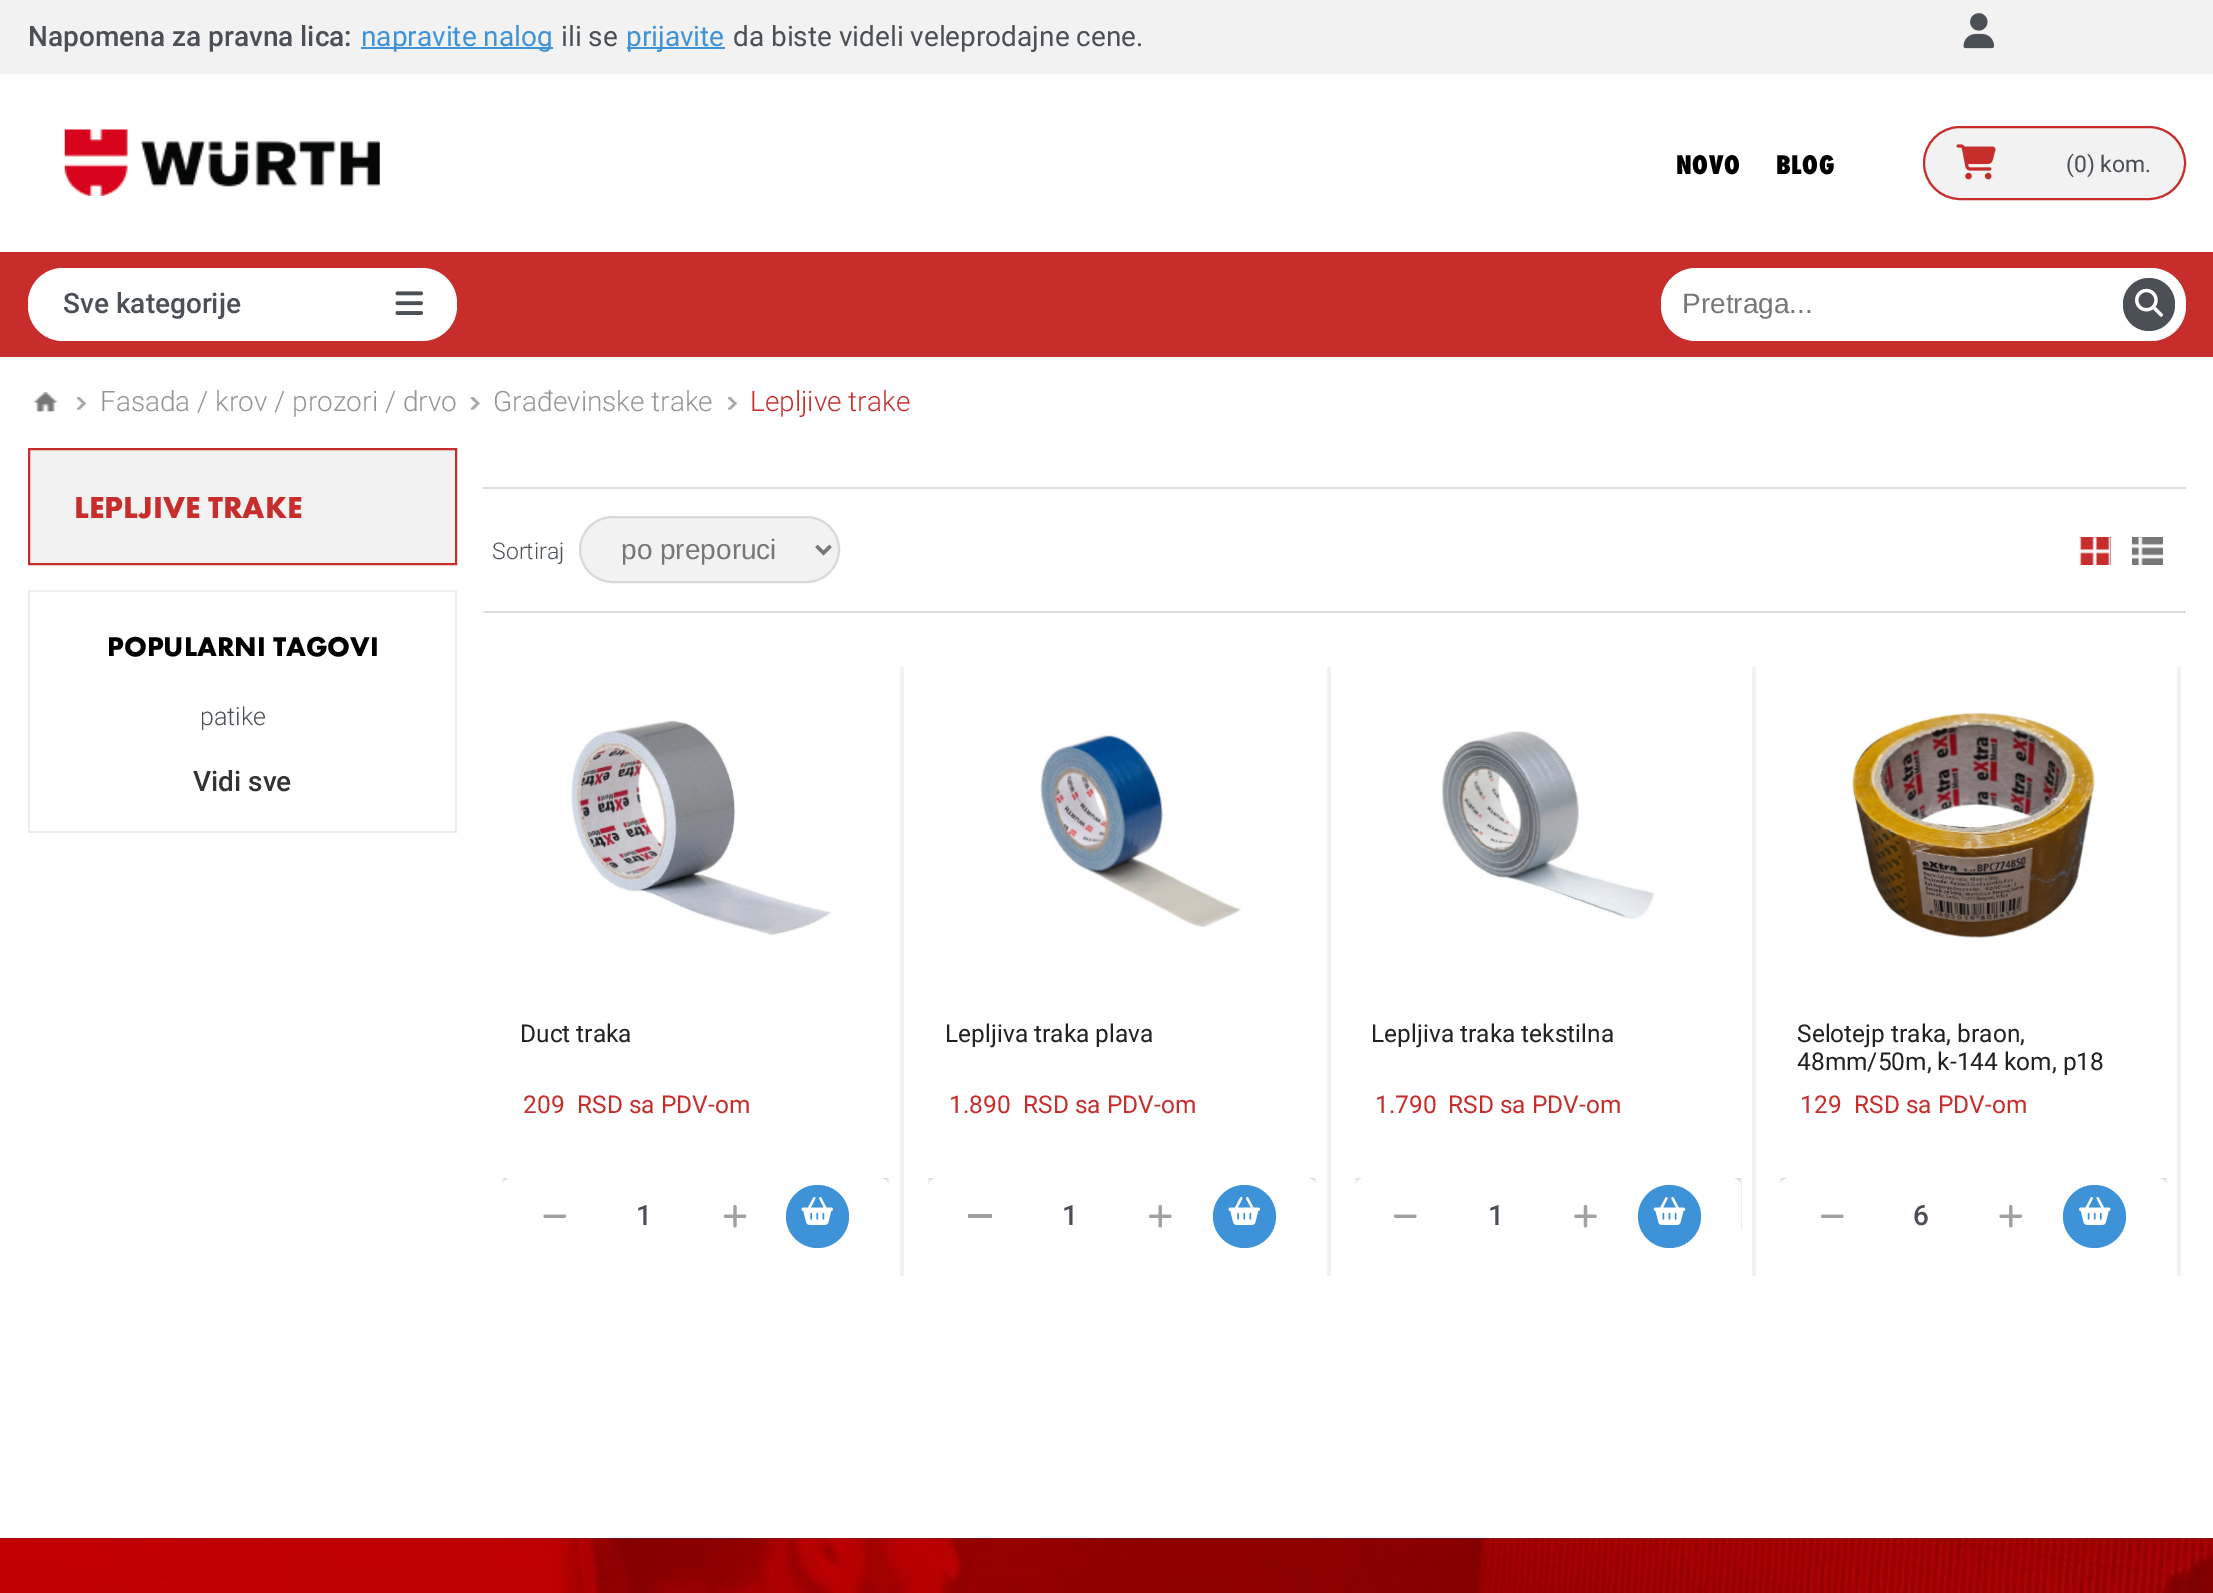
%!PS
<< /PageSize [2213 1593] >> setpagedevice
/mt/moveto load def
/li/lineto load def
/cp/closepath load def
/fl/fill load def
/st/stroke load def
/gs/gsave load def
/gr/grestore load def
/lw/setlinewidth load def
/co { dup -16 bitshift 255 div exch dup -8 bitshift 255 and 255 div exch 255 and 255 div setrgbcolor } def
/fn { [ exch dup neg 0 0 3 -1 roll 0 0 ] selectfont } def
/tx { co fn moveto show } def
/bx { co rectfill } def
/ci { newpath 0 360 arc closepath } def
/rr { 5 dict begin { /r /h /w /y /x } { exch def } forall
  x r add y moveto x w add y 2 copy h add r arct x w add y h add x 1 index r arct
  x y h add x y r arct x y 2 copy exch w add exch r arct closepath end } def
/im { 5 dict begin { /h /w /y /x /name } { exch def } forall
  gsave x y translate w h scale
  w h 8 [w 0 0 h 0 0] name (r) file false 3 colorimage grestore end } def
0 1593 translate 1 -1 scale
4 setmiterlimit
0 0 2213 1593 16#FFFFFF bx
0 0 2213 74 16#F2F2F2 bx
361 47 192 2 16#3E92D7 bx
627 47 98 2 16#3E92D7 bx
(media/1.raw) 1963 13 32 36 im
(media/2.raw) 64 129 316 67 im
16#F2F2F2 co
1924 127 261 72 36 rr gs fl gr
16#C62D2B co
2 lw
st
(media/3.raw) 1956 144 40 36 im
0 252 2213 105 16#C62D2B bx
16#FFFFFF co
28 268 429 73 35 rr fl
(media/4.raw) 395 291 29 24 im
1661 268 525 73 35 rr fl
16#4A5056 co
2123 278 52 53 26 rr fl
(media/5.raw) 2135 288 28 29 im
(media/6.raw) 33 392 25 20 im
(media/7.raw) 77 397 9 13 im
(media/8.raw) 470 397 10 13 im
(media/7.raw) 728 397 9 13 im
16#F2F2F2 co
29 449 mt 456 449 li 456 564 li 29 564 li cp gs fl gr
16#C62D2B co
st
28 590 429 2 16#F0F0F0 bx
455 590 2 243 16#ECECEC bx
28 831 429 2 16#ECECEC bx
28 590 2 243 16#ECECEC bx
483 487 1703 2 16#DDDDDD bx
483 611 1703 2 16#DDDDDD bx
16#F2F2F2 co
580 517 259 65 32.5 rr gs fl gr
16#D9D9D9 co
st
16#777777 co
3.5 lw
816.5 546 mt 823.5 553 li 830.5 546 li st
2079 537 32 28 16#C62D2B bx
(media/9.raw) 2079 537 32 28 im
2132 537 31 28 16#777777 bx
(media/10.raw) 2131 537 32 28 im
(media/11.raw) 571 720 260 216 im
900 667 4 609 16#F2F2F2 bx
504 1178 383 4 16#D9D9D9 bx
887 1178 2 9 16#ECECEC bx
502 1178 2 9 16#ECECEC bx
16#FFFFFF co
502 1178 387 79 9 rr fl
(media/12.raw) 543 1214 24 4 im
(media/13.raw) 723 1204 24 24 im
16#3E92D7 co
817.5 1216.5 31.5 ci fl
(media/14.raw) 801 1197 32 28 im
(media/15.raw) 1040 734 201 193 im
1327 667 4 609 16#F2F2F2 bx
930 1178 384 4 16#D9D9D9 bx
1314 1178 2 9 16#ECECEC bx
928 1178 2 9 16#ECECEC bx
16#FFFFFF co
928 1178 388 79 9 rr fl
968 1214 24 4 16#A1A1A1 bx
(media/16.raw) 1148 1204 24 24 im
16#3E92D7 co
1244.5 1216.5 31.5 ci fl
(media/14.raw) 1228 1197 32 28 im
(media/17.raw) 1441 731 213 189 im
1752 667 4 609 16#F2F2F2 bx
1357 1178 383 5 16#D9D9D9 bx
1740 1178 2 52 16#ECECEC bx
1355 1178 2 9 16#ECECEC bx
16#FFFFFF co
1355 1178 386 79 9 rr fl
(media/18.raw) 1393 1214 24 4 im
(media/19.raw) 1574 1204 23 24 im
16#3E92D7 co
1669.5 1216.5 31.5 ci fl
(media/20.raw) 1653 1197 33 28 im
(media/21.raw) 1851 712 244 226 im
2177 667 4 609 16#F2F2F2 bx
1782 1178 383 4 16#D9D9D9 bx
2165 1178 2 9 16#ECECEC bx
1780 1178 2 9 16#ECECEC bx
16#FFFFFF co
1780 1178 387 79 9 rr fl
(media/18.raw) 1820 1214 24 4 im
(media/22.raw) 1999 1204 24 24 im
16#3E92D7 co
2094.5 1216.5 31.5 ci fl
(media/23.raw) 2079 1197 32 28 im
(media/24.raw) 0 1538 2213 55 im
(Napomena za pravna lica:) 28 46 /Roboto-Medium 28 16#4A5056 tx
(napravite nalog) 361 46 /Roboto-Regular 28 16#3E92D7 tx
(ili se) 561 46 /Roboto-Regular 28 16#4A5056 tx
(prijavite) 626 46 /Roboto-Regular 28 16#3E92D7 tx
(da biste videli veleprodajne cene.) 733 46 /Roboto-Regular 28 16#4A5056 tx
/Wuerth-ExtraBold 28 fn
16#000000 co
1676 174 mt .5 0 (NOVO) ashow
1776 174 mt .5 0 (BLOG) ashow
(\(0\) kom.) 2066 172 /Roboto-Regular 23 16#4A5056 tx
(Sve kategorije) 63 313 /Roboto-Medium 28 16#4A5056 tx
(Pretraga...) 1682 313 /LiberationSans-Regular 28 16#777777 tx
(Fasada / krov / prozori / drvo) 100 411 /Roboto-Light 28 16#959595 tx
(Građevinske trake) 493 411 /Roboto-Light 28 16#959595 tx
(Lepljive trake) 750 411 /Roboto-Light 28 16#C62D2B tx
(LEPLJIVE TRAKE) 74 518 /Wuerth-Bold 31.5 16#C62D2B tx
(POPULARNI TAGOVI) 107 656 /Wuerth-Bold 28 16#000000 tx
(patike) 200 725 /Roboto-Light 25 16#4A5056 tx
(Vidi sve) 193 791 /Roboto-Medium 28 16#333333 tx
(Sortiraj) 492 559 /Roboto-Light 23 16#4A5056 tx
(po preporuci) 621 559 /LiberationSans-Regular 28 16#777777 tx
(Duct traka) 520 1042 /Roboto-Regular 24.5 16#212121 tx
(209) 523 1113 /Roboto-Regular 24.5 16#C62D2B tx
(RSD sa PDV-om) 577 1113 /Roboto-Regular 24.5 16#C62D2B tx
(1) 636 1225 /Roboto-Medium 28 16#4A5056 tx
(Lepljiva traka plava) 945 1042 /Roboto-Regular 24.5 16#212121 tx
(1.890) 949 1113 /Roboto-Regular 24.5 16#C62D2B tx
(RSD sa PDV-om) 1023 1113 /Roboto-Regular 24.5 16#C62D2B tx
(1) 1062 1225 /Roboto-Medium 28 16#4A5056 tx
(Lepljiva traka tekstilna) 1371 1042 /Roboto-Regular 24.5 16#212121 tx
(1.790) 1375 1113 /Roboto-Regular 24.5 16#C62D2B tx
(RSD sa PDV-om) 1448 1113 /Roboto-Regular 24.5 16#C62D2B tx
(1) 1488 1225 /Roboto-Medium 28 16#4A5056 tx
(Selotejp traka, braon,) 1797 1042 /Roboto-Regular 24.5 16#212121 tx
(48mm/50m, k-144 kom, p18) 1797 1070 /Roboto-Regular 24.5 16#212121 tx
(129) 1800 1113 /Roboto-Regular 24.5 16#C62D2B tx
(RSD sa PDV-om) 1854 1113 /Roboto-Regular 24.5 16#C62D2B tx
(6) 1913 1225 /Roboto-Medium 28 16#4A5056 tx
showpage
